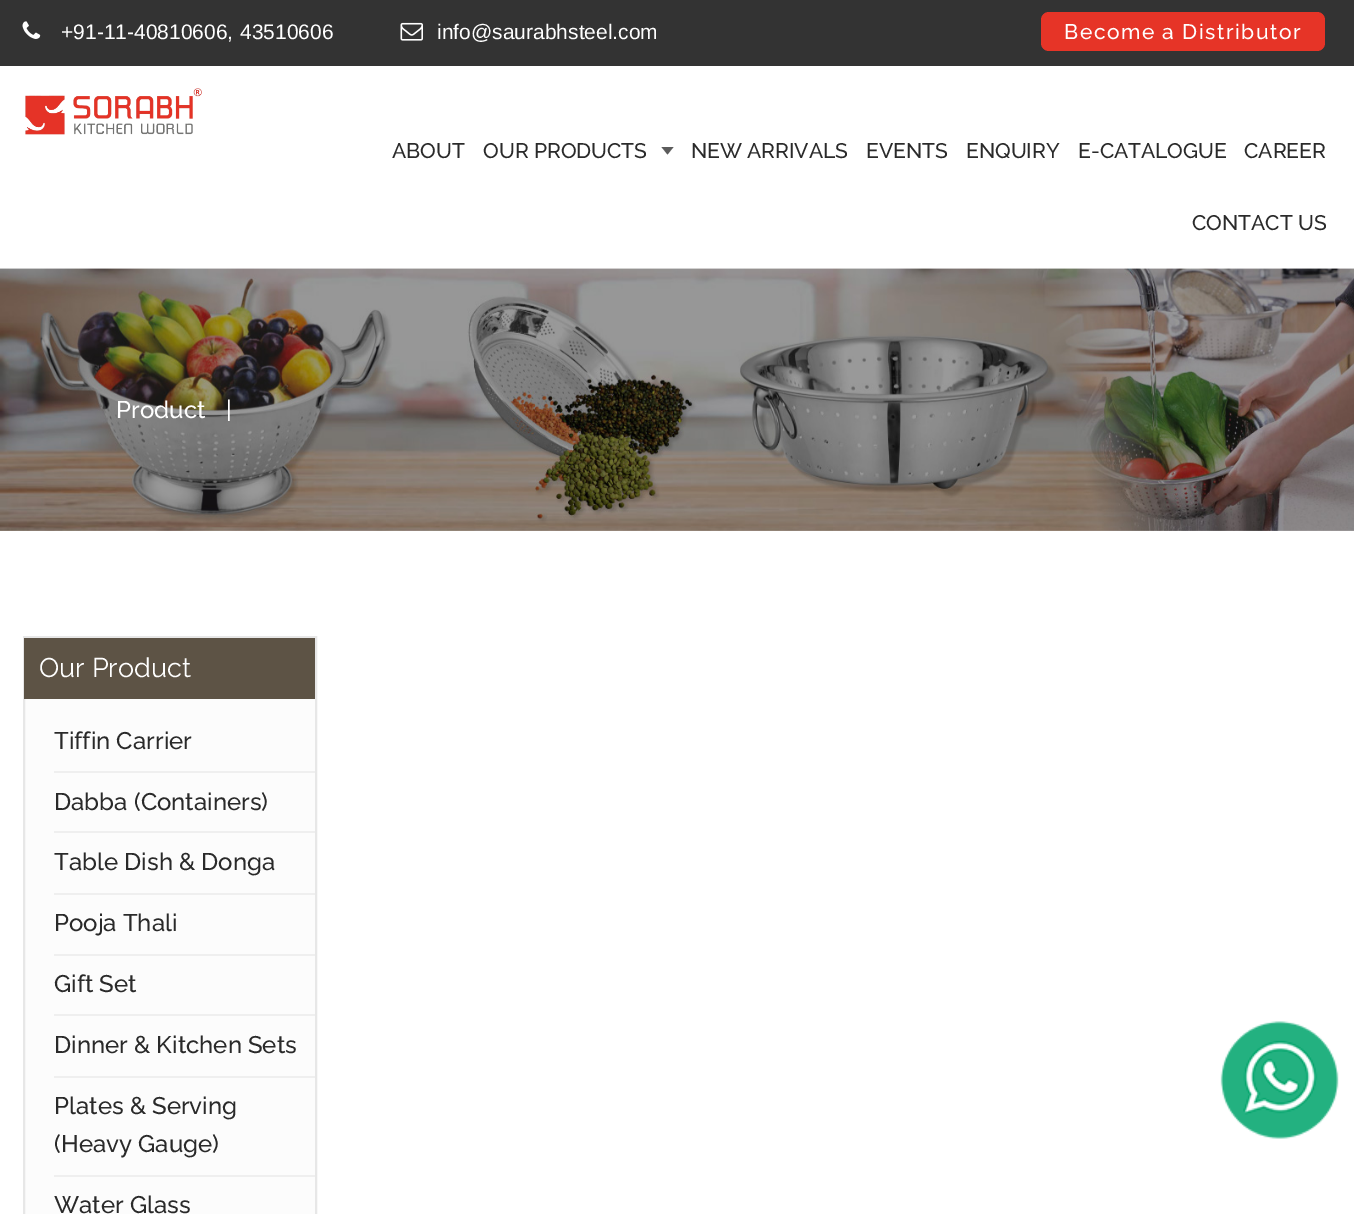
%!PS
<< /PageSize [1354 1214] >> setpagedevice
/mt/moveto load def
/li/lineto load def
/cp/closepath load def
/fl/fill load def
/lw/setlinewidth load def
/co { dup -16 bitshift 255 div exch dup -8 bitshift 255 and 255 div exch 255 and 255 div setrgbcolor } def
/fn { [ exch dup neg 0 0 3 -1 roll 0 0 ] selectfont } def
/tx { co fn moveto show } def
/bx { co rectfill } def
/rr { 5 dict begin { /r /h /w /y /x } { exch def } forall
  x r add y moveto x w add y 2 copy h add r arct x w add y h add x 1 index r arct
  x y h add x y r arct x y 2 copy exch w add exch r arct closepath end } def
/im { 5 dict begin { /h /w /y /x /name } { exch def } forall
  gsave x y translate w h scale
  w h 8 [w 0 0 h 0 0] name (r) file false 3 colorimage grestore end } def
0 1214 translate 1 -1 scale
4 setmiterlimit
0 0 1354 1214 16#FFFFFF bx
0 0 1354 66 16#333333 bx
(media/1.raw) 22 21 19 18 im
(media/2.raw) 400 22 23 19 im
16#E63427 co
1041 12 284 39 8 rr fl
(media/3.raw) 25 88 177 47 im
16#5C5C5C co
661.5 147 mt 673.5 147 li 667.5 154.5 li cp fl
(media/4.raw) 0 268 1354 263 im
25 699 290 515 16#FCFCFC bx
16#E7E7E7 co
2 lw
24 637 292 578 rectstroke
24 638 291 61 16#5D5345 bx
54 771 261 2 16#EFEFEF bx
54 831 261 2 16#EFEFEF bx
54 893 261 2 16#EFEFEF bx
54 954 261 2 16#EFEFEF bx
54 1014 261 2 16#EFEFEF bx
54 1076 261 2 16#EFEFEF bx
54 1175 261 2 16#EFEFEF bx
(media/5.raw) 1220 1021 119 118 im
(+91-11-40810606,) 61 39 /LiberationSans-Regular 21 16#FFFFFF tx
(43510606) 240 39 /LiberationSans-Regular 21 16#FFFFFF tx
(info@saurabhsteel.com) 437 39 /LiberationSans-Regular 21 16#FFFFFF tx
/Raleway-Medium 21 fn
1064 39 mt 1.5 0 (Become a Distributor) ashow
(ABOUT) 392 158 /Raleway-Medium 21 16#2A2A2A tx
(OUR PRODUCTS) 483 158 /Raleway-Medium 21 16#2A2A2A tx
(NEW ARRIVALS) 691 158 /Raleway-Medium 21 16#2A2A2A tx
(EVENTS) 866 158 /Raleway-Medium 21 16#2A2A2A tx
(ENQUIRY) 966 158 /Raleway-Medium 21 16#2A2A2A tx
(E-CATALOGUE) 1078 158 /Raleway-Medium 21 16#2A2A2A tx
(CAREER) 1244 158 /Raleway-Medium 21 16#2A2A2A tx
(CONTACT US) 1192 230 /Raleway-Medium 21 16#2A2A2A tx
(Product) 116 418 /Raleway-Medium 24 16#FFFFFF tx
(|) 226 418 /Raleway-Medium 24 16#FFFFFF tx
(Our Product) 39 677 /Raleway-Regular 27 16#FFFFFF tx
(Tiffin Carrier) 54 749 /Raleway-Medium 24 16#2A2A2A tx
(Dabba \(Containers\)) 54 810 /Raleway-Medium 24 16#2A2A2A tx
(Table Dish & Donga) 54 870 /Raleway-Medium 24 16#2A2A2A tx
(Pooja Thali) 54 931 /Raleway-Medium 24 16#2A2A2A tx
(Gift Set) 54 992 /Raleway-Medium 24 16#2A2A2A tx
(Dinner & Kitchen Sets) 54 1053 /Raleway-Medium 24 16#2A2A2A tx
(Plates & Serving) 54 1114 /Raleway-Medium 24 16#2A2A2A tx
(\(Heavy Gauge\)) 54 1152 /Raleway-Medium 24 16#2A2A2A tx
(Water Glass) 54 1213 /Raleway-Medium 24 16#2A2A2A tx
showpage
